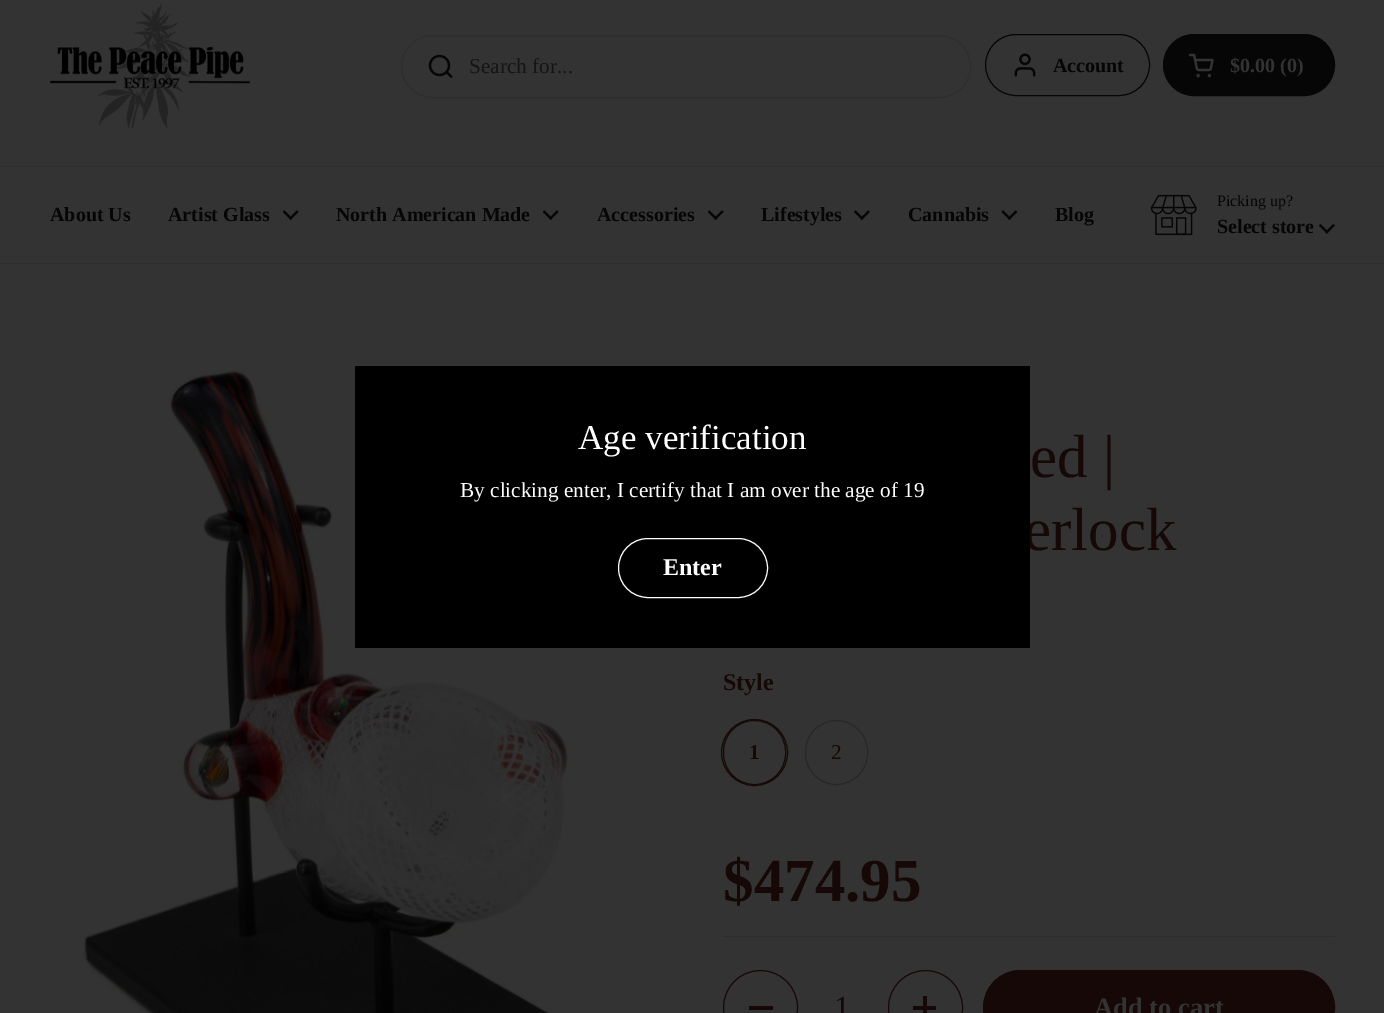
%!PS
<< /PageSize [1384 1013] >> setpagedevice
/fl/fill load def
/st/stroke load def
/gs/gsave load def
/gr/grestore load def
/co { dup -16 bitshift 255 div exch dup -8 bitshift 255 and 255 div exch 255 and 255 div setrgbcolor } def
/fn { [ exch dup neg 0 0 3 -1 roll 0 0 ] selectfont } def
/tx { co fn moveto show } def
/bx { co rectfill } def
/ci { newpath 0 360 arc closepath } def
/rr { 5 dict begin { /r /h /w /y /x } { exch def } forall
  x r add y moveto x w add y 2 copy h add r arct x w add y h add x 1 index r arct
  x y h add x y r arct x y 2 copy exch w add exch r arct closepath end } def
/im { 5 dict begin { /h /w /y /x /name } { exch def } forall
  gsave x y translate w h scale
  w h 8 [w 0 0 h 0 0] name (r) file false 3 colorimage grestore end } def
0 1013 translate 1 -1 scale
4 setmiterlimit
0 0 1384 1013 16#333333 bx
0 166 1384 1 16#2E2E2E bx
(media/1.raw) 50 3 200 126 im
401.5 35.5 569 62 31 rr st
(media/2.raw) 428 54 25 24 im
16#060606 co
985.5 34.5 164 61 30.5 rr st
(media/3.raw) 1014 53 22 24 im
1163.5 34.5 171 61 30.5 rr gs fl gr
st
(media/4.raw) 1188 53 26 25 im
0 263 1384 1 16#2E2E2E bx
(media/5.raw) 283 210 16 10 im
(media/5.raw) 543 210 16 10 im
(media/5.raw) 708 210 16 10 im
(media/6.raw) 854 210 16 10 im
(media/7.raw) 1001 210 17 10 im
(media/8.raw) 1150 194 47 42 im
(media/9.raw) 1319 224 16 10 im
(media/10.raw) 82 370 489 643 im
16#150806 co
754.5 752.5 33 ci st
723.5 720.5 62 64 31 rr st
16#2A2626 co
805.5 720.5 62 64 31 rr st
723 936 612 1 16#2E2D2C bx
16#150806 co
760.5 1007.5 37 ci st
749 1006 24 4 16#150806 bx
925.5 1007.5 37 ci st
923 996 4 17 16#150806 bx
913 1006 23 4 16#150806 bx
983.5 970.5 351 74 37 rr gs fl gr
st
(Search for...) 469 73 /LiberationSerif-Regular 21.25 16#151515 tx
(Account) 1053 72 /LiberationSerif-Bold 20 16#060606 tx
($0.00 \(0\)) 1230 72 /LiberationSerif-Bold 20 16#333333 tx
(About Us) 50 221 /LiberationSerif-Bold 20 16#060606 tx
(Artist Glass) 168 221 /LiberationSerif-Bold 20 16#060606 tx
(North American Made) 336 221 /LiberationSerif-Bold 20 16#060606 tx
(Accessories) 597 221 /LiberationSerif-Bold 20 16#060606 tx
(Lifestyles) 761 221 /LiberationSerif-Bold 20 16#060606 tx
(Cannabis) 908 221 /LiberationSerif-Bold 20 16#060606 tx
(Blog) 1055 221 /LiberationSerif-Bold 20 16#060606 tx
(Picking up?) 1217 206 /LiberationSerif-Regular 16 16#060606 tx
(Select store) 1217 233 /LiberationSerif-Bold 20 16#060606 tx
(ed |) 1030 477 /LiberationSerif-Regular 61 16#150806 tx
(erlock) 1024 550 /LiberationSerif-Regular 61 16#150806 tx
355 366 675 282 16#000000 bx
16#FFFFFF co
618.5 538.5 149 59 29.5 rr st
(Enter) 663 575 /LiberationSerif-Bold 24 16#FFFFFF tx
(By clicking enter, I certify that I am over the age of 19) 460 497 /LiberationSerif-Regular 21.25 16#FFFFFF tx
(Age verification) 578 449 /LiberationSerif-Regular 35 16#FFFFFF tx
(Style) 723 690 /LiberationSerif-Bold 24 16#150806 tx
(1) 749 759 /LiberationSerif-Bold 21.25 16#150806 tx
(2) 831 759 /LiberationSerif-Regular 21.25 16#150806 tx
($474.95) 723 901 /LiberationSerif-Bold 61 16#150806 tx
(1) 834 1018 /LiberationSerif-Regular 32 16#150806 tx
(Add to cart) 1094 1016 /LiberationSerif-Bold 26.5 16#333333 tx
showpage
